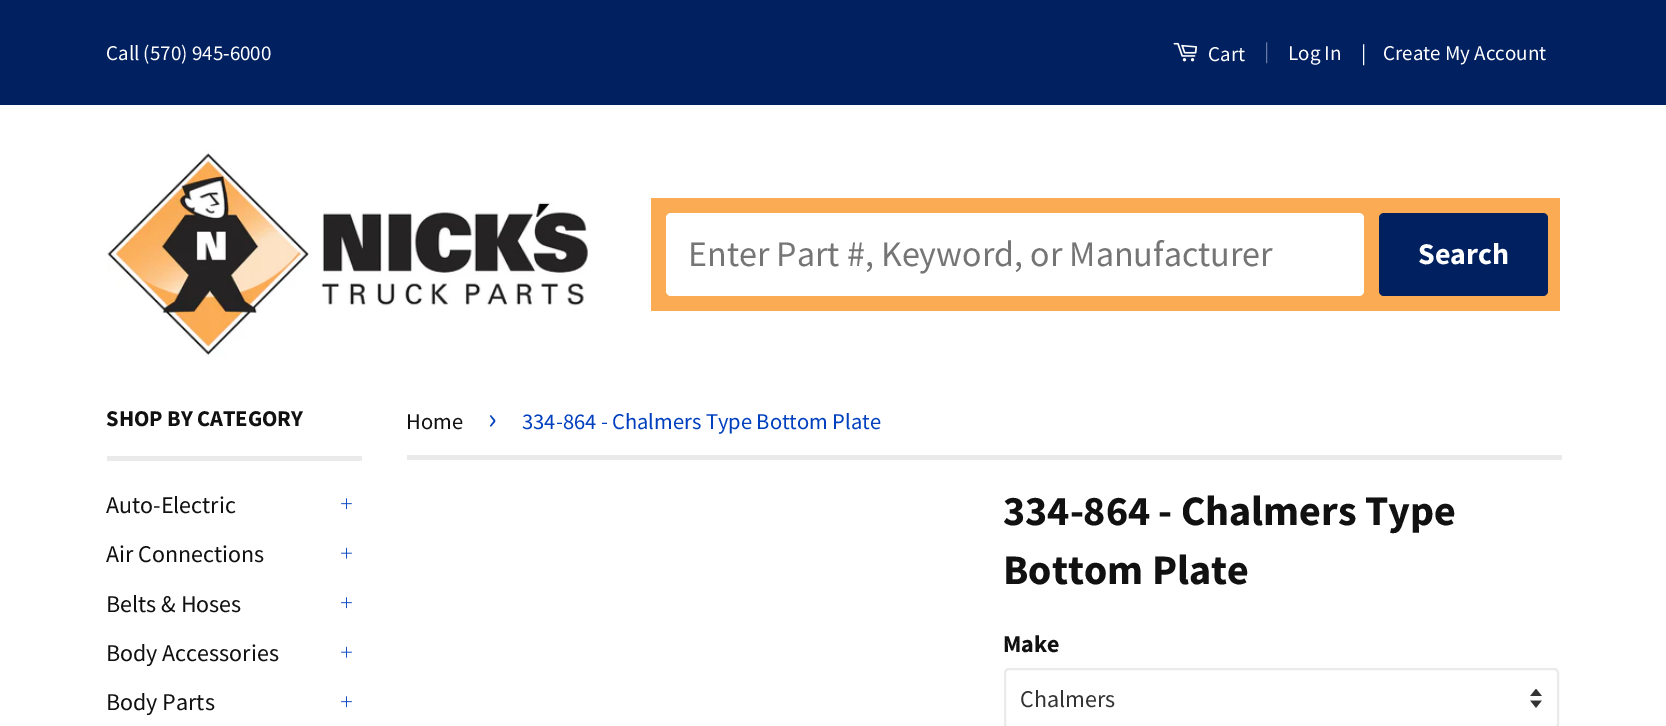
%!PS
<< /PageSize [1666 726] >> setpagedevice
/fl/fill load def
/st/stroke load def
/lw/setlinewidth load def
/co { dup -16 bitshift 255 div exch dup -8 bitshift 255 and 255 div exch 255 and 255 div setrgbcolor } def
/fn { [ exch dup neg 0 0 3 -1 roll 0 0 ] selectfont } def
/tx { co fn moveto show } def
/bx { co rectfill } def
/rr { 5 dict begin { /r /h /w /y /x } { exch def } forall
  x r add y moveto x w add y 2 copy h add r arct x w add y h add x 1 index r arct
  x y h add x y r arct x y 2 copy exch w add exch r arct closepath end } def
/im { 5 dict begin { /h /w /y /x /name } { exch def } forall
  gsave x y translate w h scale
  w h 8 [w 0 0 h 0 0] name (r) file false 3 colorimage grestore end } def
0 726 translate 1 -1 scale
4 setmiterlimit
0 0 1666 726 16#FFFFFF bx
0 0 1666 105 16#002060 bx
(media/1.raw) 1173 42 24 20 im
(media/2.raw) 107 150 481 207 im
651 198 909 113 16#FBAB54 bx
16#FFFFFF co
666 213 698 83 5 rr fl
16#002060 co
1379 213 169 83 5 rr fl
107 456 255 5 16#EAEAEA bx
(media/3.raw) 341 498 11 12 im
(media/4.raw) 341 547 11 12 im
(media/3.raw) 341 597 11 12 im
(media/4.raw) 341 646 11 12 im
(media/3.raw) 341 696 11 12 im
407 455 1155 5 16#EAEAEA bx
(media/5.raw) 1530 689 12 19 im
2 lw
1005 669 553 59 4 rr st
(Call \(570\) 945-6000) 106 60 /SourceSansPro-Regular 21 16#FFFFFF tx
(Cart) 1208 61 /SourceSansPro-Regular 21 16#FFFFFF tx
(|) 1264 58 /SourceSansPro-Regular 21 16#6679A0 tx
(Log In) 1288 60 /SourceSansPro-Regular 21 16#FFFFFF tx
(|) 1361 60 /SourceSansPro-Regular 21 16#FFFFFF tx
(Create My Account) 1383 60 /SourceSansPro-Regular 21 16#FFFFFF tx
(Enter Part #, Keyword, or Manufacturer) 688 266 /SourceSansPro-Regular 36 16#757575 tx
(Search) 1418 264 /SourceSansPro-Bold 30 16#FFFFFF tx
(SHOP BY CATEGORY) 106 426 /SourceSansPro-Bold 22.5 16#111111 tx
(Auto-Electric) 106 513 /SourceSansPro-Regular 24 16#111111 tx
(Air Connections) 106 562 /SourceSansPro-Regular 24 16#111111 tx
(Belts & Hoses) 106 612 /SourceSansPro-Regular 24 16#111111 tx
(Body Accessories) 106 661 /SourceSansPro-Regular 24 16#111111 tx
(Body Parts) 106 710 /SourceSansPro-Regular 24 16#111111 tx
(Home) 406 429 /SourceSansPro-Regular 22.5 16#111111 tx
(›) 488 429 /SourceSansPro-Regular 32 16#0040BF tx
(334-864 - Chalmers Type Bottom Plate) 522 429 /SourceSansPro-Regular 22.5 16#0040BF tx
(334-864 - Chalmers Type) 1003 525 /SourceSansPro-Bold 42 16#111111 tx
(Bottom Plate) 1003 584 /SourceSansPro-Bold 42 16#111111 tx
(Make) 1003 652 /SourceSansPro-Bold 24 16#111111 tx
(Chalmers) 1020 707 /SourceSansPro-Regular 24 16#333333 tx
showpage
